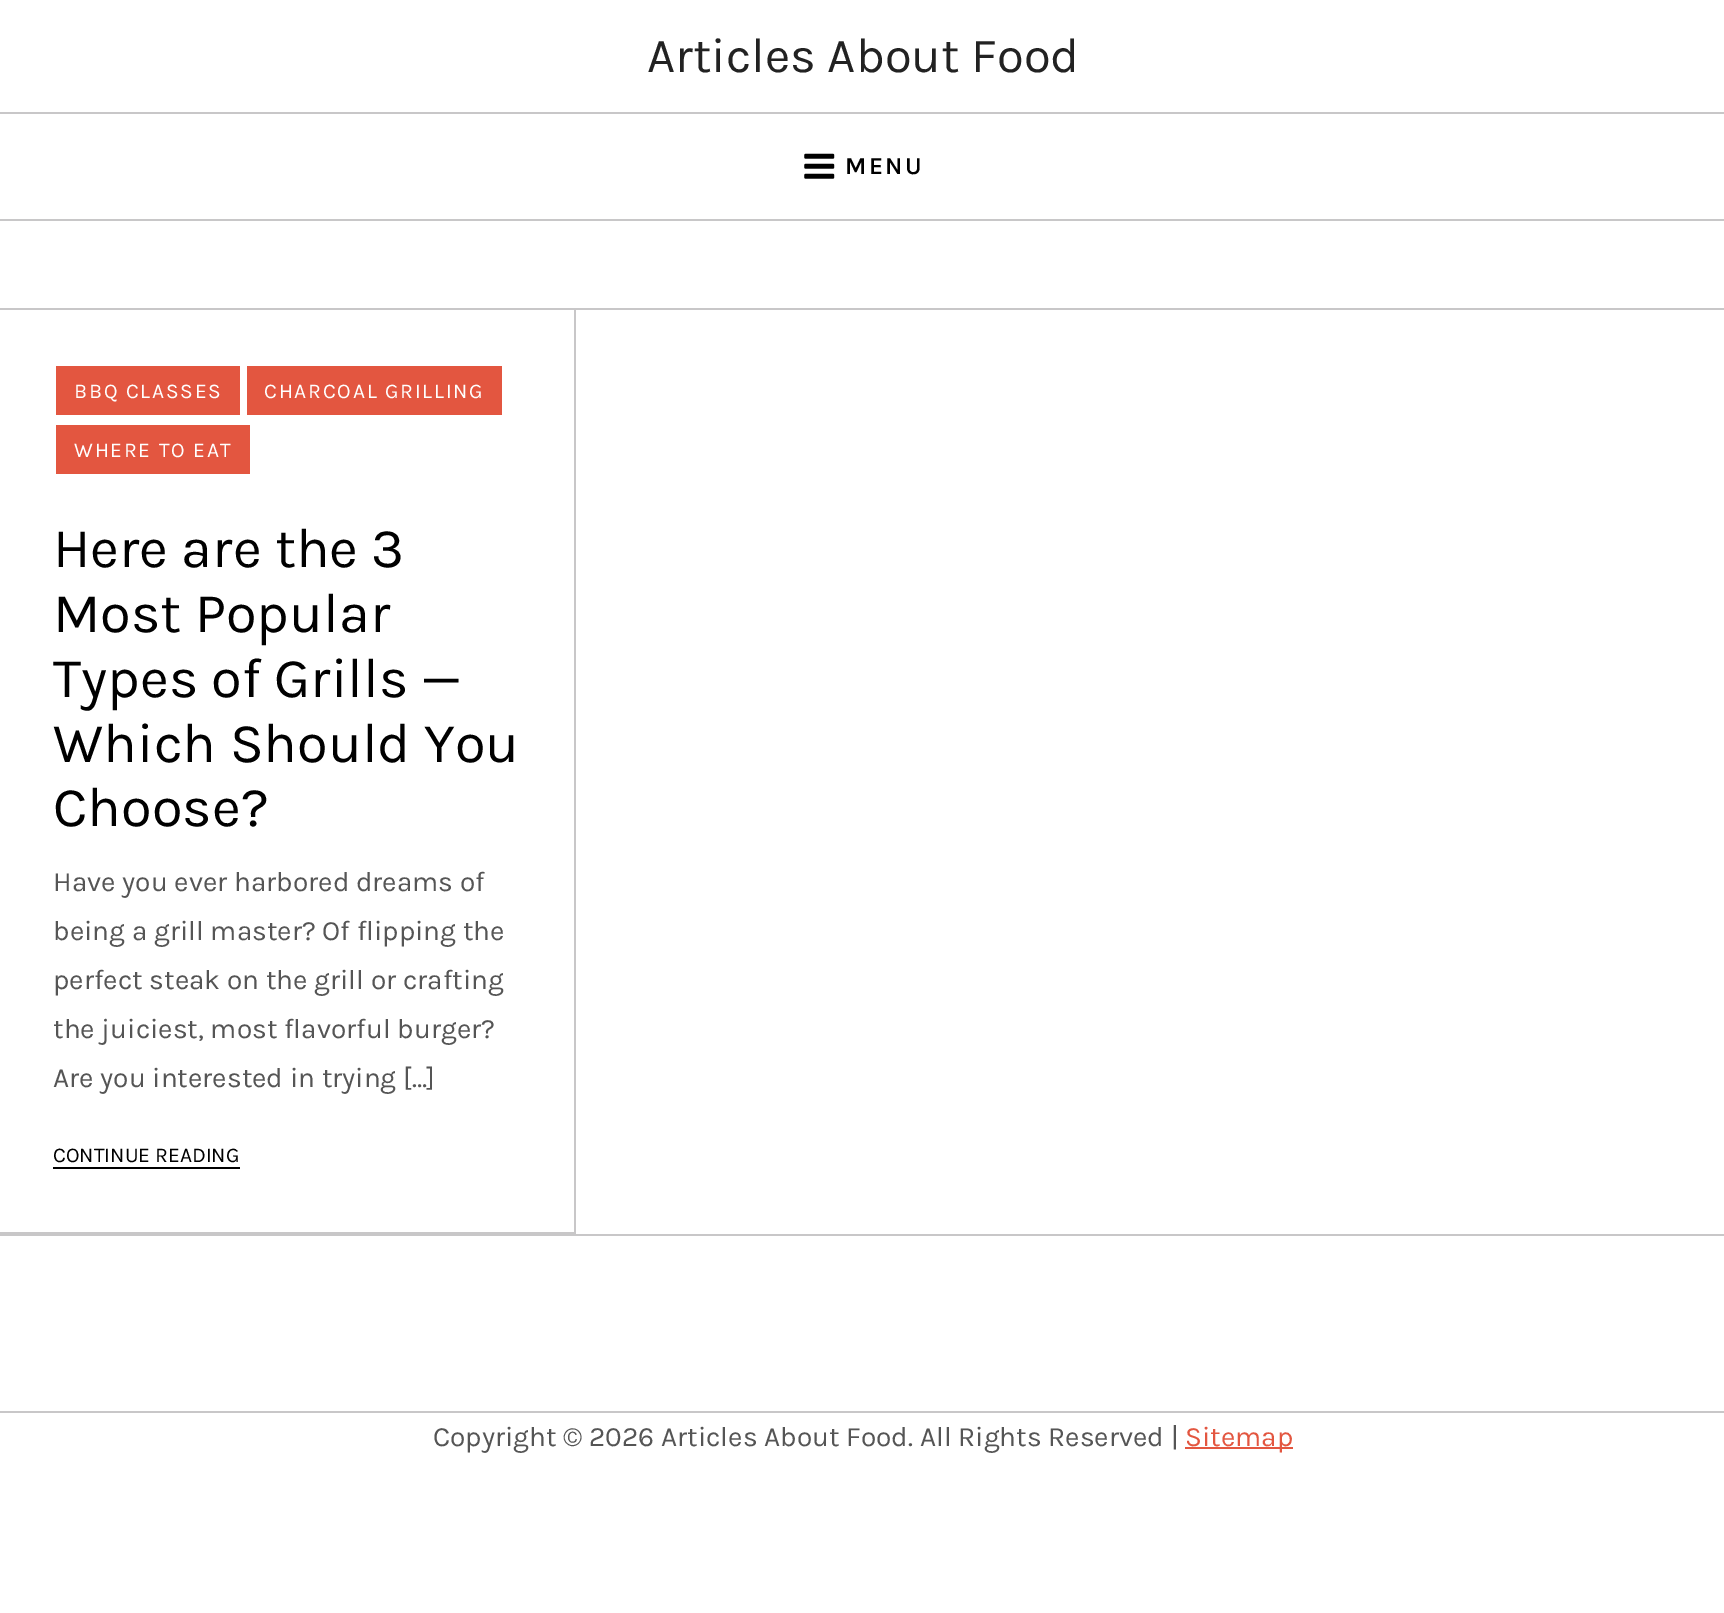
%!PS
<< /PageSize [1724 1613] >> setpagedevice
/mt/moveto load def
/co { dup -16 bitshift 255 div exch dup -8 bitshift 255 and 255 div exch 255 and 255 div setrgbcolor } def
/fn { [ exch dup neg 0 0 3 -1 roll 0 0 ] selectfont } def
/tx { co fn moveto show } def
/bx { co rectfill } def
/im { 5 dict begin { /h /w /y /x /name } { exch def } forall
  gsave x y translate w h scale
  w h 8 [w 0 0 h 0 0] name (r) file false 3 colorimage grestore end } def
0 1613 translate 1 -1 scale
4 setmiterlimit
0 0 1724 1613 16#FFFFFF bx
0 112 1724 2 16#C8C7C8 bx
0 219 1724 2 16#C8C7C8 bx
(media/1.raw) 804 153 31 26 im
0 308 1724 2 16#C8C7C8 bx
0 1234 1724 2 16#C8C7C8 bx
574 310 2 924 16#C8C7C8 bx
0 1232 576 2 16#C8C7C8 bx
56 366 184 49 16#E35640 bx
247 366 255 49 16#E35640 bx
56 425 194 49 16#E35640 bx
53 1167 187 2 16#000000 bx
0 1411 1724 2 16#C8C7C8 bx
1185 1447 108 2 16#E35640 bx
(Articles About Food) 647 72 /Karla-Regular 49 16#222222 tx
/Karla-SemiBold 24.5 fn
16#000000 co
845 174 mt 2.5 0 (MENU) ashow
/Karla-Regular 21 fn
16#FFFFFF co
74 398 mt 1.75 0 (BBQ CLASSES) ashow
264 398 mt 1.75 0 (CHARCOAL GRILLING) ashow
74 457 mt 1.75 0 (WHERE TO EAT) ashow
(Here are the 3) 53 567 /Karla-Regular 56 16#000000 tx
(Most Popular) 53 632 /Karla-Regular 56 16#000000 tx
(Types of Grills —) 53 697 /Karla-Regular 56 16#000000 tx
(Which Should You) 53 762 /Karla-Regular 56 16#000000 tx
(Choose?) 53 826 /Karla-Regular 56 16#000000 tx
(Have you ever harbored dreams of) 53 891 /Karla-Regular 28 16#555555 tx
(being a grill master? Of flipping the) 53 940 /Karla-Regular 28 16#555555 tx
(perfect steak on the grill or crafting) 53 989 /Karla-Regular 28 16#555555 tx
(the juiciest, most flavorful burger?) 53 1038 /Karla-Regular 28 16#555555 tx
(Are you interested in trying […]) 53 1087 /Karla-Regular 28 16#555555 tx
(CONTINUE READING) 53 1162 /Karla-Regular 21 16#000000 tx
(Copyright © 2026 Articles About Food. All Rights Reserved |) 433 1446 /Karla-Regular 28 16#555555 tx
(Sitemap) 1185 1446 /Karla-Regular 28 16#E35640 tx
showpage
